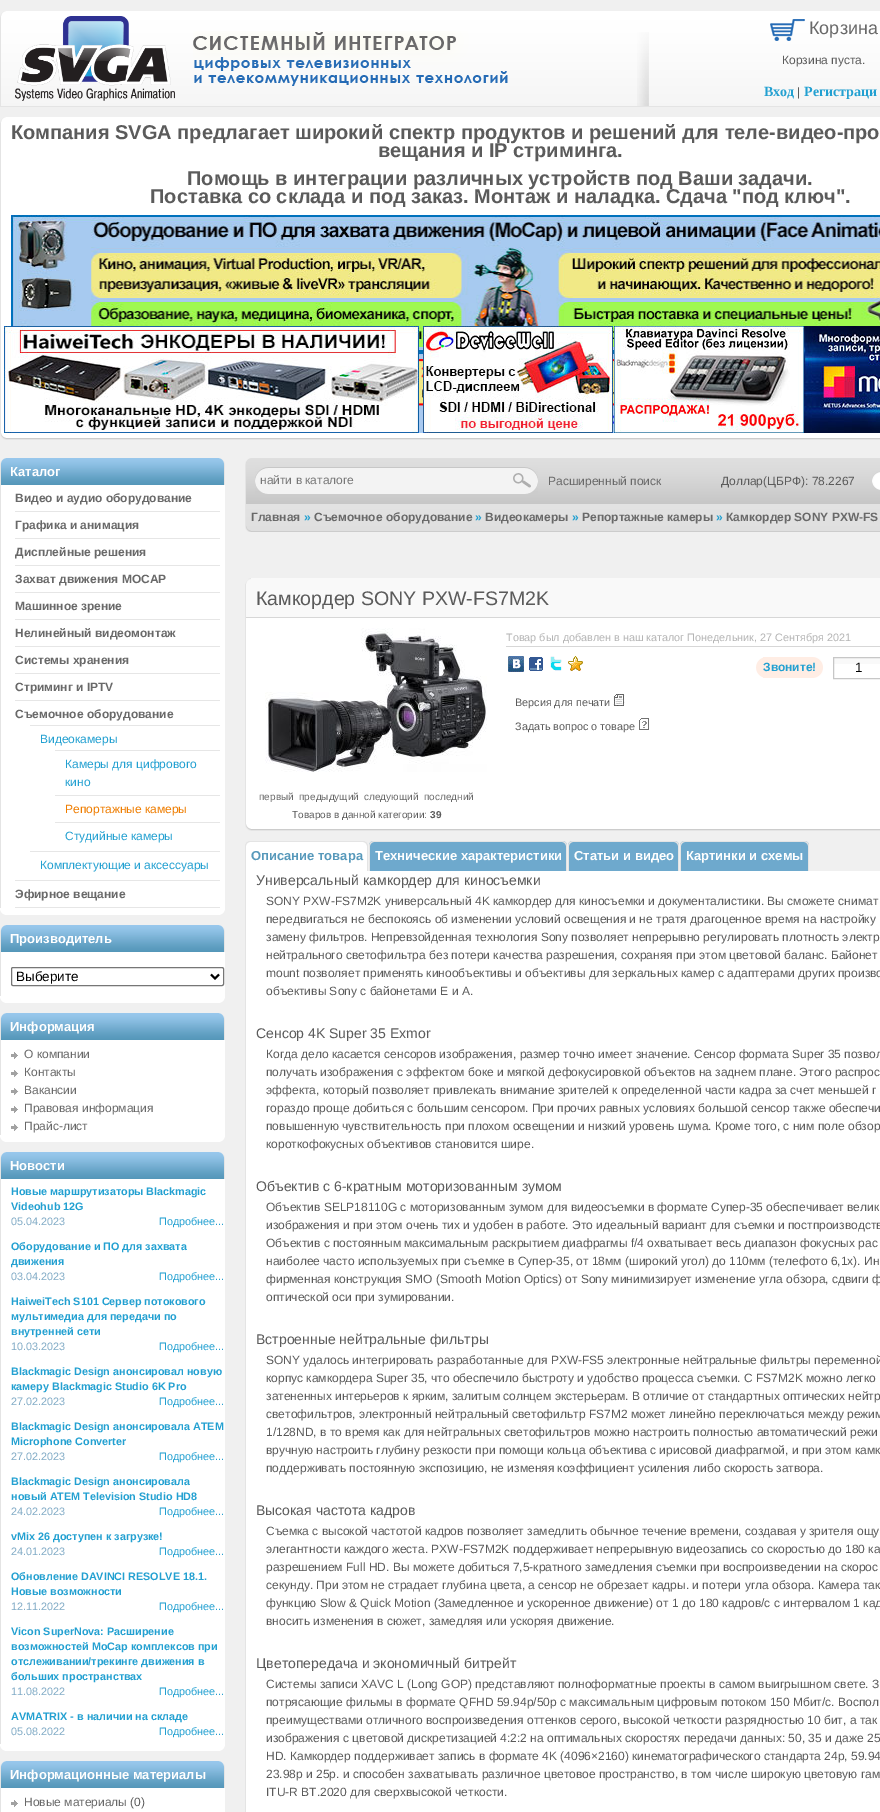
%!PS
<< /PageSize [880 1812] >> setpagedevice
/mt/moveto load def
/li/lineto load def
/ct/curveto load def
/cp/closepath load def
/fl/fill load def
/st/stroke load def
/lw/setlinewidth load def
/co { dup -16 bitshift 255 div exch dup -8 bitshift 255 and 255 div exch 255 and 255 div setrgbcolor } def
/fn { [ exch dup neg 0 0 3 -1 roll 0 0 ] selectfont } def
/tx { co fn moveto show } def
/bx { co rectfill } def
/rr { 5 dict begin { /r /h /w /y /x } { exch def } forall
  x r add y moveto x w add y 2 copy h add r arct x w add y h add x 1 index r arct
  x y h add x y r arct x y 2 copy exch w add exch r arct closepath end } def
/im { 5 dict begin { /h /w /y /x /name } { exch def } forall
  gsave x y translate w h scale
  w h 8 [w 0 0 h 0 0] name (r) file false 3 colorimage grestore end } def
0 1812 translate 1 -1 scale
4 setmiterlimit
0 0 880 1812 16#F0F0F0 bx
(media/1.raw) 0 10 880 96 im
0 106 880 1 16#E4E4E4 bx
(media/2.raw) 0 11 6 95 im
(media/3.raw) 15 16 160 85 im
(media/4.raw) 193 31 315 55 im
(media/5.raw) 637 32 12 74 im
(media/6.raw) 770 19 35 22 im
0 117 880 6 16#FFFFFF bx
(media/7.raw) 0 117 6 6 im
1 123 879 310 16#FFFFFF bx
0 123 1 310 16#E4E4E4 bx
(media/8.raw) 11 215 869 137 im
(media/9.raw) 419 352 195 81 im
(media/10.raw) 4 326 415 107 im
(media/11.raw) 423 326 190 107 im
(media/12.raw) 614 326 190 107 im
(media/13.raw) 804 326 76 107 im
0 433 880 5 16#FFFFFF bx
(media/14.raw) 6 438 874 2 im
(media/15.raw) 0 433 6 7 im
(media/16.raw) 0 458 225 27 im
1 485 224 423 16#FFFFFF bx
0 485 1 423 16#E4E4E4 bx
15 511 205 1 16#E6E6E6 bx
15 538 205 1 16#E6E6E6 bx
15 565 205 1 16#E6E6E6 bx
15 592 205 1 16#E6E6E6 bx
15 619 205 1 16#E6E6E6 bx
15 646 205 1 16#E6E6E6 bx
15 673 205 1 16#E6E6E6 bx
15 700 205 1 16#E6E6E6 bx
15 880 205 1 16#E6E6E6 bx
30 725 190 1 16#E6E6E6 bx
55 750 165 1 16#E6E6E6 bx
55 795 165 1 16#E6E6E6 bx
55 822 165 1 16#E6E6E6 bx
30 851 190 1 16#E6E6E6 bx
15 907 205 1 16#E6E6E6 bx
16#FFFFFF co
0 908 mt 225 908 li 225 912 222 915 218 915 ct 7 915 li 3 915 0 912 0 908 ct cp fl
(media/16.raw) 0 925 225 27 im
1 952 224 44 16#FFFFFF bx
0 952 1 44 16#E4E4E4 bx
16#767676 co
11.5 967.5 212 18 1.5 rr st
16#000000 co
2 lw
211 974.5 mt 215 978.5 li 219 974.5 li st
16#FFFFFF co
0 996 mt 225 996 li 225 1000 222 1003 218 1003 ct 7 1003 li 3 1003 0 1000 0 996 ct cp fl
(media/16.raw) 0 1013 225 27 im
1 1040 224 95 16#FFFFFF bx
0 1040 1 95 16#E4E4E4 bx
(media/17.raw) 11 1052 7 7 im
(media/18.raw) 11 1070 8 7 im
(media/18.raw) 11 1088 8 7 im
(media/17.raw) 11 1106 7 7 im
(media/18.raw) 11 1124 8 7 im
16#FFFFFF co
0 1135 mt 225 1135 li 225 1139 222 1142 218 1142 ct 7 1142 li 3 1142 0 1139 0 1135 ct cp fl
(media/16.raw) 0 1152 225 27 im
1 1179 224 565 16#FFFFFF bx
0 1179 1 565 16#E4E4E4 bx
16#FFFFFF co
0 1744 mt 225 1744 li 225 1748 222 1751 218 1751 ct 7 1751 li 3 1751 0 1748 0 1744 ct cp fl
(media/16.raw) 0 1761 225 27 im
1 1788 224 24 16#FFFFFF bx
0 1788 1 24 16#E4E4E4 bx
(media/17.raw) 11 1800 7 7 im
(media/19.raw) 251 458 629 74 im
(media/20.raw) 245 458 6 74 im
(media/21.raw) 255 467 255 27 im
(media/22.raw) 510 467 28 27 im
(media/23.raw) 872 471 8 19 im
245 578 635 6 16#F9F9F9 bx
(media/24.raw) 245 578 6 6 im
246 584 634 33 16#F9F9F9 bx
245 617 635 1 16#D7D7D7 bx
245 584 1 34 16#E4E4E4 bx
246 618 634 206 16#FFFFFF bx
245 618 1 206 16#E4E4E4 bx
(media/25.raw) 265 628 222 144 im
506 646 374 1 16#D7D7D7 bx
(media/26.raw) 508 656 16 16 im
(media/27.raw) 529 657 14 14 im
(media/28.raw) 550 656 12 15 im
(media/29.raw) 568 656 15 15 im
(media/30.raw) 756 657 7 21 im
(media/31.raw) 763 657 60 21 im
833 658 47 6 16#F9F9F9 bx
16#C7C7C7 co
1 lw
833.5 657.5 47 21 rectstroke
(media/32.raw) 613 694 12 12 im
(media/33.raw) 639 718 10 12 im
245 824 635 5 16#FFFFFF bx
(media/34.raw) 251 829 629 2 im
(media/15.raw) 245 824 6 7 im
250 841 mt 363 841 li 366 841 368 843 368 846 ct 368 871 li 245 871 li 245 846 li 245 843 247 841 250 841 ct cp fl
16#E4E4E4 co
250 841 mt 363 841 li 366 841 368 843 368 846 ct 368 871 li 245 871 li 245 846 li 245 843 247 841 250 841 ct cp 250 842 mt 363 842 li 365 842 367 844 367 846 ct 367 871 li 246 871 li 246 846 li 246 844 248 842 250 842 ct cp eofill
16#6EA9CD co
374 841 mt 562 841 li 565 841 567 843 567 846 ct 567 871 li 369 871 li 369 846 li 369 843 371 841 374 841 ct cp fl
16#E4E4E4 co
374 841 mt 562 841 li 565 841 567 843 567 846 ct 567 871 li 369 871 li 369 846 li 369 843 371 841 374 841 ct cp 374 842 mt 562 842 li 564 842 566 844 566 846 ct 566 871 li 370 871 li 370 846 li 370 844 372 842 374 842 ct cp eofill
16#6EA9CD co
573 841 mt 674 841 li 677 841 679 843 679 846 ct 679 871 li 568 871 li 568 846 li 568 843 570 841 573 841 ct cp fl
16#E4E4E4 co
573 841 mt 674 841 li 677 841 679 843 679 846 ct 679 871 li 568 871 li 568 846 li 568 843 570 841 573 841 ct cp 573 842 mt 674 842 li 676 842 678 844 678 846 ct 678 871 li 569 871 li 569 846 li 569 844 571 842 573 842 ct cp eofill
16#6EA9CD co
685 841 mt 804 841 li 807 841 809 843 809 846 ct 809 871 li 680 871 li 680 846 li 680 843 682 841 685 841 ct cp fl
16#E4E4E4 co
685 841 mt 804 841 li 807 841 809 843 809 846 ct 809 871 li 680 871 li 680 846 li 680 843 682 841 685 841 ct cp 685 842 mt 804 842 li 806 842 808 844 808 846 ct 808 871 li 681 871 li 681 846 li 681 844 683 842 685 842 ct cp eofill
246 871 634 941 16#FFFFFF bx
245 871 1 941 16#E4E4E4 bx
(Корзина) 809 34 /LiberationSans-Regular 18 16#696969 tx
(Корзина пуста.) 782 64 /LiberationSans-Regular 12 16#5B5B5B tx
(Вход) 764 96 /LiberationSerif-Bold 14 16#22A0D1 tx
(|) 797 96 /LiberationSans-Regular 12 16#5B5B5B tx
(Регистраци) 804 96 /LiberationSerif-Bold 14 16#22A0D1 tx
(Компания SVGA предлагает широкий спектр продуктов и решений для теле-видео-про) 11 139 /LiberationSans-Bold 20 16#5B5B5B tx
(вещания и IP стриминга.) 378 157 /LiberationSans-Bold 20 16#5B5B5B tx
(Помощь в интеграции различных устройств под Ваши задачи.) 187 185 /LiberationSans-Bold 20 16#5B5B5B tx
(Поставка со склада и под заказ. Монтаж и наладка. Сдача "под ключ".) 150 203 /LiberationSans-Bold 20 16#5B5B5B tx
(Каталог) 10 476 /LiberationSans-Bold 13 16#FFFFFF tx
(Видео и аудио оборудование) 15 502 /LiberationSans-Bold 12 16#696969 tx
(Графика и анимация) 15 529 /LiberationSans-Bold 12 16#696969 tx
(Дисплейные решения) 15 556 /LiberationSans-Bold 12 16#696969 tx
(Захват движения MOCAP) 15 583 /LiberationSans-Bold 12 16#696969 tx
(Машинное зрение) 15 610 /LiberationSans-Bold 12 16#696969 tx
(Нелинейный видеомонтаж) 15 637 /LiberationSans-Bold 12 16#696969 tx
(Системы хранения) 15 664 /LiberationSans-Bold 12 16#696969 tx
(Стриминг и IPTV) 15 691 /LiberationSans-Bold 12 16#696969 tx
(Съемочное оборудование) 15 718 /LiberationSans-Bold 12 16#696969 tx
(Видеокамеры) 40 743 /LiberationSans-Regular 12 16#22A0D1 tx
(Камеры для цифрового) 65 768 /LiberationSans-Regular 12 16#22A0D1 tx
(кино) 65 786 /LiberationSans-Regular 12 16#22A0D1 tx
(Репортажные камеры) 65 813 /LiberationSans-Regular 12 16#EF7D00 tx
(Студийные камеры) 65 840 /LiberationSans-Regular 12 16#22A0D1 tx
(Комплектующие и аксессуары) 40 869 /LiberationSans-Regular 12 16#22A0D1 tx
(Эфирное вещание) 15 898 /LiberationSans-Bold 12 16#696969 tx
(Производитель) 10 943 /LiberationSans-Bold 13 16#FFFFFF tx
(Выберите) 16 981 /LiberationSans-Regular 13.5 16#000000 tx
(Информация) 10 1031 /LiberationSans-Bold 13 16#FFFFFF tx
(О компании) 24 1058 /LiberationSans-Regular 12 16#696969 tx
(Контакты) 24 1076 /LiberationSans-Regular 12 16#696969 tx
(Вакансии) 24 1094 /LiberationSans-Regular 12 16#696969 tx
(Правовая информация) 24 1112 /LiberationSans-Regular 12 16#696969 tx
(Прайс-лист) 24 1130 /LiberationSans-Regular 12 16#696969 tx
(Новости) 10 1170 /LiberationSans-Bold 13 16#FFFFFF tx
(Новые маршрутизаторы Blackmagic) 11 1195 /LiberationSans-Bold 10.8 16#22A0D1 tx
(Videohub 12G) 11 1210 /LiberationSans-Bold 10.8 16#22A0D1 tx
(05.04.2023) 11 1225 /LiberationSans-Regular 10.8 16#81ABC6 tx
(Подробнее...) 159 1225 /LiberationSans-Regular 10.8 16#22A0D1 tx
(Оборудование и ПО для захвата) 11 1250 /LiberationSans-Bold 10.8 16#22A0D1 tx
(движения) 11 1265 /LiberationSans-Bold 10.8 16#22A0D1 tx
(03.04.2023) 11 1280 /LiberationSans-Regular 10.8 16#81ABC6 tx
(Подробнее...) 159 1280 /LiberationSans-Regular 10.8 16#22A0D1 tx
(HaiweiTech S101 Сервер потокового) 11 1305 /LiberationSans-Bold 10.8 16#22A0D1 tx
(мультимедиа для передачи по) 11 1320 /LiberationSans-Bold 10.8 16#22A0D1 tx
(внутренней сети) 11 1335 /LiberationSans-Bold 10.8 16#22A0D1 tx
(10.03.2023) 11 1350 /LiberationSans-Regular 10.8 16#81ABC6 tx
(Подробнее...) 159 1350 /LiberationSans-Regular 10.8 16#22A0D1 tx
(Blackmagic Design анонсировал новую) 11 1375 /LiberationSans-Bold 10.8 16#22A0D1 tx
(камеру Blackmagic Studio 6K Pro) 11 1390 /LiberationSans-Bold 10.8 16#22A0D1 tx
(27.02.2023) 11 1405 /LiberationSans-Regular 10.8 16#81ABC6 tx
(Подробнее...) 159 1405 /LiberationSans-Regular 10.8 16#22A0D1 tx
(Blackmagic Design анонсировала ATEM) 11 1430 /LiberationSans-Bold 10.8 16#22A0D1 tx
(Microphone Converter) 11 1445 /LiberationSans-Bold 10.8 16#22A0D1 tx
(27.02.2023) 11 1460 /LiberationSans-Regular 10.8 16#81ABC6 tx
(Подробнее...) 159 1460 /LiberationSans-Regular 10.8 16#22A0D1 tx
(Blackmagic Design анонсировала) 11 1485 /LiberationSans-Bold 10.8 16#22A0D1 tx
(новый ATEM Television Studio HD8) 11 1500 /LiberationSans-Bold 10.8 16#22A0D1 tx
(24.02.2023) 11 1515 /LiberationSans-Regular 10.8 16#81ABC6 tx
(Подробнее...) 159 1515 /LiberationSans-Regular 10.8 16#22A0D1 tx
(vMix 26 доступен к загрузке!) 11 1540 /LiberationSans-Bold 10.8 16#22A0D1 tx
(24.01.2023) 11 1555 /LiberationSans-Regular 10.8 16#81ABC6 tx
(Подробнее...) 159 1555 /LiberationSans-Regular 10.8 16#22A0D1 tx
(Обновление DAVINCI RESOLVE 18.1.) 11 1580 /LiberationSans-Bold 10.8 16#22A0D1 tx
(Новые возможности) 11 1595 /LiberationSans-Bold 10.8 16#22A0D1 tx
(12.11.2022) 11 1610 /LiberationSans-Regular 10.8 16#81ABC6 tx
(Подробнее...) 159 1610 /LiberationSans-Regular 10.8 16#22A0D1 tx
(Vicon SuperNova: Расширение) 11 1635 /LiberationSans-Bold 10.8 16#22A0D1 tx
(возможностей MoCap комплексов при) 11 1650 /LiberationSans-Bold 10.8 16#22A0D1 tx
(отслеживании/трекинге движения в) 11 1665 /LiberationSans-Bold 10.8 16#22A0D1 tx
(больших пространствах) 11 1680 /LiberationSans-Bold 10.8 16#22A0D1 tx
(11.08.2022) 11 1695 /LiberationSans-Regular 10.8 16#81ABC6 tx
(Подробнее...) 159 1695 /LiberationSans-Regular 10.8 16#22A0D1 tx
(AVMATRIX - в наличии на складе) 11 1720 /LiberationSans-Bold 10.8 16#22A0D1 tx
(05.08.2022) 11 1735 /LiberationSans-Regular 10.8 16#81ABC6 tx
(Подробнее...) 159 1735 /LiberationSans-Regular 10.8 16#22A0D1 tx
(Информационные материалы) 10 1779 /LiberationSans-Bold 13 16#FFFFFF tx
(Новые материалы) 24 1806 /LiberationSans-Regular 12 16#696969 tx
(\(0\)) 130 1806 /LiberationSans-Regular 12 16#5B5B5B tx
(найти в каталоге) 260 484 /LiberationSans-Regular 12 16#777777 tx
(Расширенный поиск) 548 485 /LiberationSans-Regular 12 16#696969 tx
(Доллар\(ЦБРФ\): 78.2267) 721 485 /LiberationSans-Regular 12 16#5B5B5B tx
(Главная) 251 521 /LiberationSans-Bold 12 16#696969 tx
(») 304 521 /LiberationSans-Bold 12 16#22A0D1 tx
(Съемочное оборудование) 314 521 /LiberationSans-Bold 12 16#696969 tx
(») 475 521 /LiberationSans-Bold 12 16#22A0D1 tx
(Видеокамеры) 485 521 /LiberationSans-Bold 12 16#696969 tx
(») 572 521 /LiberationSans-Bold 12 16#22A0D1 tx
(Репортажные камеры) 582 521 /LiberationSans-Bold 12 16#696969 tx
(») 716 521 /LiberationSans-Bold 12 16#22A0D1 tx
(Камкордер SONY PXW-FS) 726 521 /LiberationSans-Bold 12 16#696969 tx
(Камкордер SONY PXW-FS7M2K) 256 605 /LiberationSans-Regular 19.6 16#5B5B5B tx
(Товар был добавлен в наш каталог Понедельник, 27 Сентября 2021) 506 641 /LiberationSans-Regular 10.8 16#B5B5B5 tx
(Звоните!) 763 671 /LiberationSans-Bold 12 16#22A0D1 tx
(1) 855 672 /LiberationSans-Regular 13.5 16#000000 tx
(Версия для печати) 515 706 /LiberationSans-Regular 10.8 16#5B5B5B tx
(Задать вопрос о товаре) 515 730 /LiberationSans-Regular 10.8 16#5B5B5B tx
(первый) 259 800 /LiberationSans-Regular 10 16#696969 tx
(предыдущий) 299 800 /LiberationSans-Regular 10 16#696969 tx
(следующий) 364 800 /LiberationSans-Regular 10 16#696969 tx
(последний) 424 800 /LiberationSans-Regular 10 16#696969 tx
(Товаров в данной категории:) 292 818 /LiberationSans-Regular 10 16#5B5B5B tx
(39) 430 818 /LiberationSans-Bold 10 16#5B5B5B tx
(Описание товара) 251 860 /LiberationSans-Bold 13 16#5799BB tx
(Технические характеристики) 375 860 /LiberationSans-Bold 13 16#FFFFFF tx
(Статьи и видео) 574 860 /LiberationSans-Bold 13 16#FFFFFF tx
(Картинки и схемы) 686 860 /LiberationSans-Bold 13 16#FFFFFF tx
(Универсальный камкордер для киносъемки) 256 885 /LiberationSans-Regular 14 16#5B5B5B tx
(SONY PXW-FS7M2K универсальный 4K камкордер для киносъемки и документалистики. Вы сможете снимат) 266 905 /LiberationSans-Regular 12 16#5B5B5B tx
(передвигаться не беспокоясь об изменении условий освещения и не тратя драгоценное время на настройку) 266 923 /LiberationSans-Regular 12 16#5B5B5B tx
(замену фильтров. Непревзойденная технология Sony позволяет непрерывно регулировать плотность электр) 266 941 /LiberationSans-Regular 12 16#5B5B5B tx
(нейтрального светофильтра без потери качества разрешения, сохраняя при этом цветовой баланс. Байонет) 266 959 /LiberationSans-Regular 12 16#5B5B5B tx
(mount позволяет применять кинообъективы и объективы для зеркальных камер с адаптерами других произво) 266 977 /LiberationSans-Regular 12 16#5B5B5B tx
(объективы Sony с байонетами E и A.) 266 995 /LiberationSans-Regular 12 16#5B5B5B tx
(Сенсор 4K Super 35 Exmor) 256 1038 /LiberationSans-Regular 14 16#5B5B5B tx
(Когда дело касается сенсоров изображения, размер точно имеет значение. Сенсор формата Super 35 позвол) 266 1058 /LiberationSans-Regular 12 16#5B5B5B tx
(получать изображения с эффектом боке и мягкой дефокусировкой объектов на заднем плане. Этого распрос) 266 1076 /LiberationSans-Regular 12 16#5B5B5B tx
(эффекта, который позволяет привлекать внимание зрителей к определенной части кадра за счет меньшей г) 266 1094 /LiberationSans-Regular 12 16#5B5B5B tx
(гораздо проще добиться с большим сенсором. При прочих равных условиях большой сенсор также обеспечи) 266 1112 /LiberationSans-Regular 12 16#5B5B5B tx
(повышенную чувствительность при плохом освещении и низкий уровень шума. Кроме того, с ним поле обзор) 266 1130 /LiberationSans-Regular 12 16#5B5B5B tx
(короткофокусных объективов становится шире.) 266 1148 /LiberationSans-Regular 12 16#5B5B5B tx
(Объектив с 6-кратным моторизованным зумом) 256 1191 /LiberationSans-Regular 14 16#5B5B5B tx
(Объектив SELP18110G с моторизованным зумом для видеосъемки в формате Супер-35 обеспечивает велик) 266 1211 /LiberationSans-Regular 12 16#5B5B5B tx
(изображения и при этом очень тих и удобен в работе. Это идеальный вариант для съемки и постпроизводств) 266 1229 /LiberationSans-Regular 12 16#5B5B5B tx
(Объектив с постоянным максимальным раскрытием диафрагмы f/4 охватывает весь диапазон фокусных рас) 266 1247 /LiberationSans-Regular 12 16#5B5B5B tx
(наиболее часто используемых при съемке в Супер-35, от 18мм \(широкий угол\) до 110мм \(телефото 6,1x\). Ин) 266 1265 /LiberationSans-Regular 12 16#5B5B5B tx
(фирменная конструкция SMO \(Smooth Motion Optics\) от Sony минимизирует изменение угла обзора, сдвиги ф) 266 1283 /LiberationSans-Regular 12 16#5B5B5B tx
(оптической оси при зумировании.) 266 1301 /LiberationSans-Regular 12 16#5B5B5B tx
(Встроенные нейтральные фильтры) 256 1344 /LiberationSans-Regular 14 16#5B5B5B tx
(SONY удалось интегрировать разработанные для PXW-FS5 электронные нейтральные фильтры переменной) 266 1364 /LiberationSans-Regular 12 16#5B5B5B tx
(корпус камкордера Super 35, что обеспечило быстроту и удобство процесса съемки. С FS7M2K можно легко) 266 1382 /LiberationSans-Regular 12 16#5B5B5B tx
(затененных интерьеров к ярким, залитым солнцем экстерьерам. В отличие от стандартных оптических нейтр) 266 1400 /LiberationSans-Regular 12 16#5B5B5B tx
(светофильтров, электронный нейтральный светофильтр FS7M2 может линейно переключаться между режим) 266 1418 /LiberationSans-Regular 12 16#5B5B5B tx
(1/128ND, в то время как для нейтральных светофильтров можно настроить полностью автоматический режи) 266 1436 /LiberationSans-Regular 12 16#5B5B5B tx
(вручную настроить глубину резкости при помощи кольца объектива с ирисовой диафрагмой, и при этом камк) 266 1454 /LiberationSans-Regular 12 16#5B5B5B tx
(поддерживать постоянную экспозицию, не изменяя коэффициент усиления либо скорость затвора.) 266 1472 /LiberationSans-Regular 12 16#5B5B5B tx
(Высокая частота кадров) 256 1515 /LiberationSans-Regular 14 16#5B5B5B tx
(Съемка с высокой частотой кадров позволяет замедлить обычное течение времени, создавая у зрителя ощу) 266 1535 /LiberationSans-Regular 12 16#5B5B5B tx
(элегантности каждого жеста. PXW-FS7M2K поддерживает непрерывную видеозапись со скоростью до 180 ка) 266 1553 /LiberationSans-Regular 12 16#5B5B5B tx
(разрешением Full HD. Вы можете добиться 7,5-кратного замедления съемки при воспроизведении на скорос) 266 1571 /LiberationSans-Regular 12 16#5B5B5B tx
(секунду. При этом не страдает глубина цвета, а сенсор не обрезает кадры. и потери угла обзора. Камера так) 266 1589 /LiberationSans-Regular 12 16#5B5B5B tx
(функцию Slow & Quick Motion \(Замедленное и ускоренное движение\) от 1 до 180 кадров/с с интервалом 1 кад) 266 1607 /LiberationSans-Regular 12 16#5B5B5B tx
(вносить изменения в сюжет, замедляя или ускоряя движение.) 266 1625 /LiberationSans-Regular 12 16#5B5B5B tx
(Цветопередача и экономичный битрейт) 256 1668 /LiberationSans-Regular 14 16#5B5B5B tx
(Системы записи XAVC L \(Long GOP\) представляют полноформатные проекты в самом выигрышном свете. З) 266 1688 /LiberationSans-Regular 12 16#5B5B5B tx
(потрясающие фильмы в формате QFHD 59.94p/50p с максимальным цифровым потоком 150 Мбит/с. Воспол) 266 1706 /LiberationSans-Regular 12 16#5B5B5B tx
(преимуществами отличного воспроизведения оттенков серого, высокой четкости разрядностью 10 бит, а так) 266 1724 /LiberationSans-Regular 12 16#5B5B5B tx
(изображения с цветовой дискретизацией 4:2:2 на оптимальных скоростях передачи данных: 50, 35 и даже 25) 266 1742 /LiberationSans-Regular 12 16#5B5B5B tx
(HD. Камкордер поддерживает запись в формате 4K \(4096×2160\) кинематографического стандарта 24p, 59.94) 266 1760 /LiberationSans-Regular 12 16#5B5B5B tx
(23.98p и 25p. и способен захватывать различное цветовое пространство, в том числе широкую цветовую гам) 266 1778 /LiberationSans-Regular 12 16#5B5B5B tx
(ITU-R BT.2020 для сверхвысокой четкости.) 266 1796 /LiberationSans-Regular 12 16#5B5B5B tx
showpage
